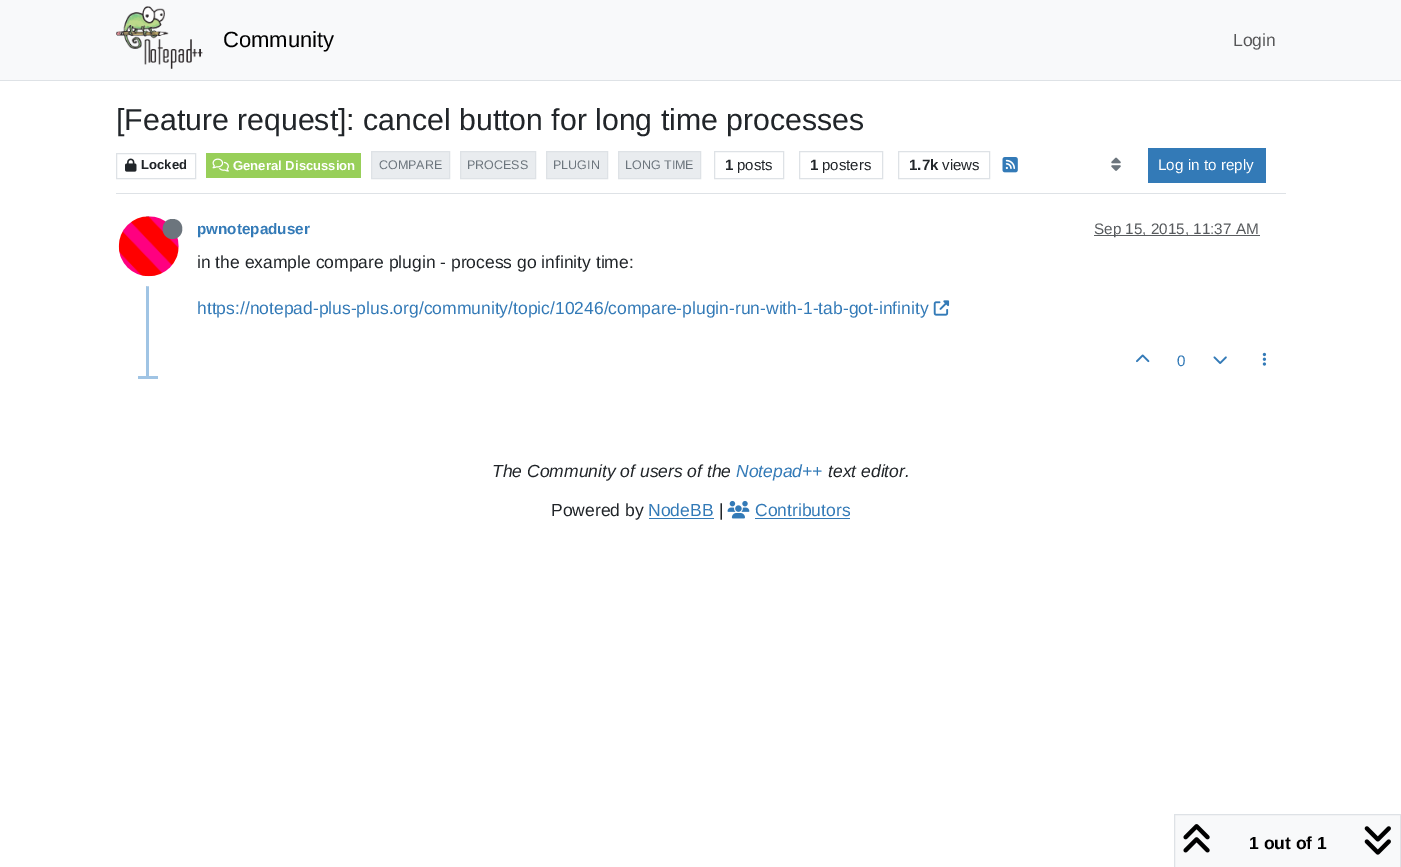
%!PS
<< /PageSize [1401 867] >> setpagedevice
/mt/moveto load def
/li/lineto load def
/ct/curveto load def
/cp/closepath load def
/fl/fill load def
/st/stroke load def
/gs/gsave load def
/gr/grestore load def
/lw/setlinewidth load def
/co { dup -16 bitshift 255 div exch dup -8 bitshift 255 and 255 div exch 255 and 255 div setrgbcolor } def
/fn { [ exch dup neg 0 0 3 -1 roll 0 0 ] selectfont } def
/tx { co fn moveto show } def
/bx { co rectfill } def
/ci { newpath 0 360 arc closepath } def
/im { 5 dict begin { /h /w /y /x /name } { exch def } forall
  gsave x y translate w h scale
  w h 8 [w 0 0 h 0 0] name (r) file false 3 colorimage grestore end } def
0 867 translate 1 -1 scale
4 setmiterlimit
0 0 1401 867 16#FFFFFF bx
0 0 1401 80 16#F8F9FA bx
0 80 1401 1 16#DEE2E6 bx
(media/1.raw) 116 6 87 63 im
116 193 1170 1 16#DEE2E6 bx
116.5 153.5 79 25 rectstroke
(media/2.raw) 125 158 12 14 im
206 153 155 25 16#98CF59 bx
(media/3.raw) 212 158 17 14 im
16#E9ECEF co
371.5 151.5 mt 449.5 151.5 li 449.5 178.5 li 371.5 178.5 li cp gs fl gr
16#DEE2E6 co
st
16#E9ECEF co
460.5 151.5 mt 535.5 151.5 li 535.5 178.5 li 460.5 178.5 li cp gs fl gr
16#DEE2E6 co
st
16#E9ECEF co
546.5 151.5 mt 607.5 151.5 li 607.5 178.5 li 546.5 178.5 li cp gs fl gr
16#DEE2E6 co
st
16#E9ECEF co
618.5 151.5 mt 700.5 151.5 li 700.5 178.5 li 618.5 178.5 li cp gs fl gr
16#DEE2E6 co
st
714.5 151.5 69 27 rectstroke
799.5 151.5 83 27 rectstroke
898.5 151.5 91 27 rectstroke
(media/4.raw) 1002 157 16 16 im
(media/5.raw) 1111 157 10 14 im
1148 148 118 35 16#337AB7 bx
146 214 3 165 16#A0C4E4 bx
16#FFFFFF co
10 lw
149 246 35 ci st
(media/6.raw) 118 216 61 61 im
16#6C757D co
172.5 239 mt 185.5 238.5 185.5 219 172.5 219 ct 159.5 219 159.5 238.5 172.5 239 ct cp fl
1094 235 166 1 16#595C5F bx
(media/7.raw) 933 300 17 16 im
(media/8.raw) 1136 354 14 9 im
(media/9.raw) 1213 356 14 8 im
(media/10.raw) 1262 352 5 14 im
138 376 20 3 16#A0C4E4 bx
16#F8F9FA co
1174.5 814.5 mt 1400.5 814.5 li 1400.5 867.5 li 1174.5 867.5 li cp gs fl gr
16#DEE2E6 co
1 lw
st
(media/11.raw) 1183 824 27 29 im
(media/12.raw) 1364 826 27 29 im
649 518 65 1 16#337AB7 bx
(media/13.raw) 727 500 23 19 im
755 518 95 1 16#337AB7 bx
(Community) 223 47 /LiberationSans-Regular 22 16#000000 tx
(Login) 1233 46 /LiberationSans-Regular 17.5 16#575758 tx
([Feature request]: cancel button for long time processes) 116 130 /LiberationSans-Regular 30.25 16#212529 tx
(Locked) 141 169 /LiberationSans-Bold 13.1 16#212529 tx
(General Discussion) 233 170 /LiberationSans-Bold 13.1 16#FFFFFF tx
(COMPARE) 379 169 /LiberationSans-Regular 12.5 16#6C757D tx
(PROCESS) 467 169 /LiberationSans-Regular 12.5 16#6C757D tx
(PLUGIN) 553 169 /LiberationSans-Regular 12.5 16#6C757D tx
(LONG TIME) 625 169 /LiberationSans-Regular 12.5 16#6C757D tx
(1) 725 170 /LiberationSans-Bold 15 16#212529 tx
(posts) 737 170 /LiberationSans-Regular 15 16#212529 tx
(1) 810 170 /LiberationSans-Bold 15 16#212529 tx
(posters) 822 170 /LiberationSans-Regular 15 16#212529 tx
(1.7k) 909 170 /LiberationSans-Bold 15 16#212529 tx
(views) 942 170 /LiberationSans-Regular 15 16#212529 tx
(Log in to reply) 1158 170 /LiberationSans-Regular 15.25 16#FFFFFF tx
(pwnotepaduser) 197 234 /LiberationSans-Bold 15.25 16#337AB7 tx
(Sep 15, 2015, 11:37 AM) 1094 234 /LiberationSans-Regular 15.25 16#585B5E tx
(in the example compare plugin - process go infinity time:) 197 268 /LiberationSans-Regular 17.5 16#212529 tx
(https://notepad-plus-plus.org/community/topic/10246/compare-plugin-run-with-1-tab-got-infinity) 197 314 /LiberationSans-Regular 17.5 16#337AB7 tx
(0) 1177 366 /LiberationSans-Regular 15.25 16#337AB7 tx
(1 out of 1) 1249 849 /LiberationSans-Bold 17.5 16#000000 tx
(The Community of users of the) 492 477 /LiberationSans-Italic 17.5 16#212529 tx
(Notepad++) 736 477 /LiberationSans-Italic 17.5 16#337AB7 tx
(text editor.) 828 477 /LiberationSans-Italic 17.5 16#212529 tx
(Powered by) 551 516 /LiberationSans-Regular 17.5 16#212529 tx
(NodeBB) 648 516 /LiberationSans-Regular 17.5 16#337AB7 tx
(|) 719 516 /LiberationSans-Regular 17.5 16#212529 tx
(Contributors) 755 516 /LiberationSans-Regular 17.5 16#337AB7 tx
showpage
